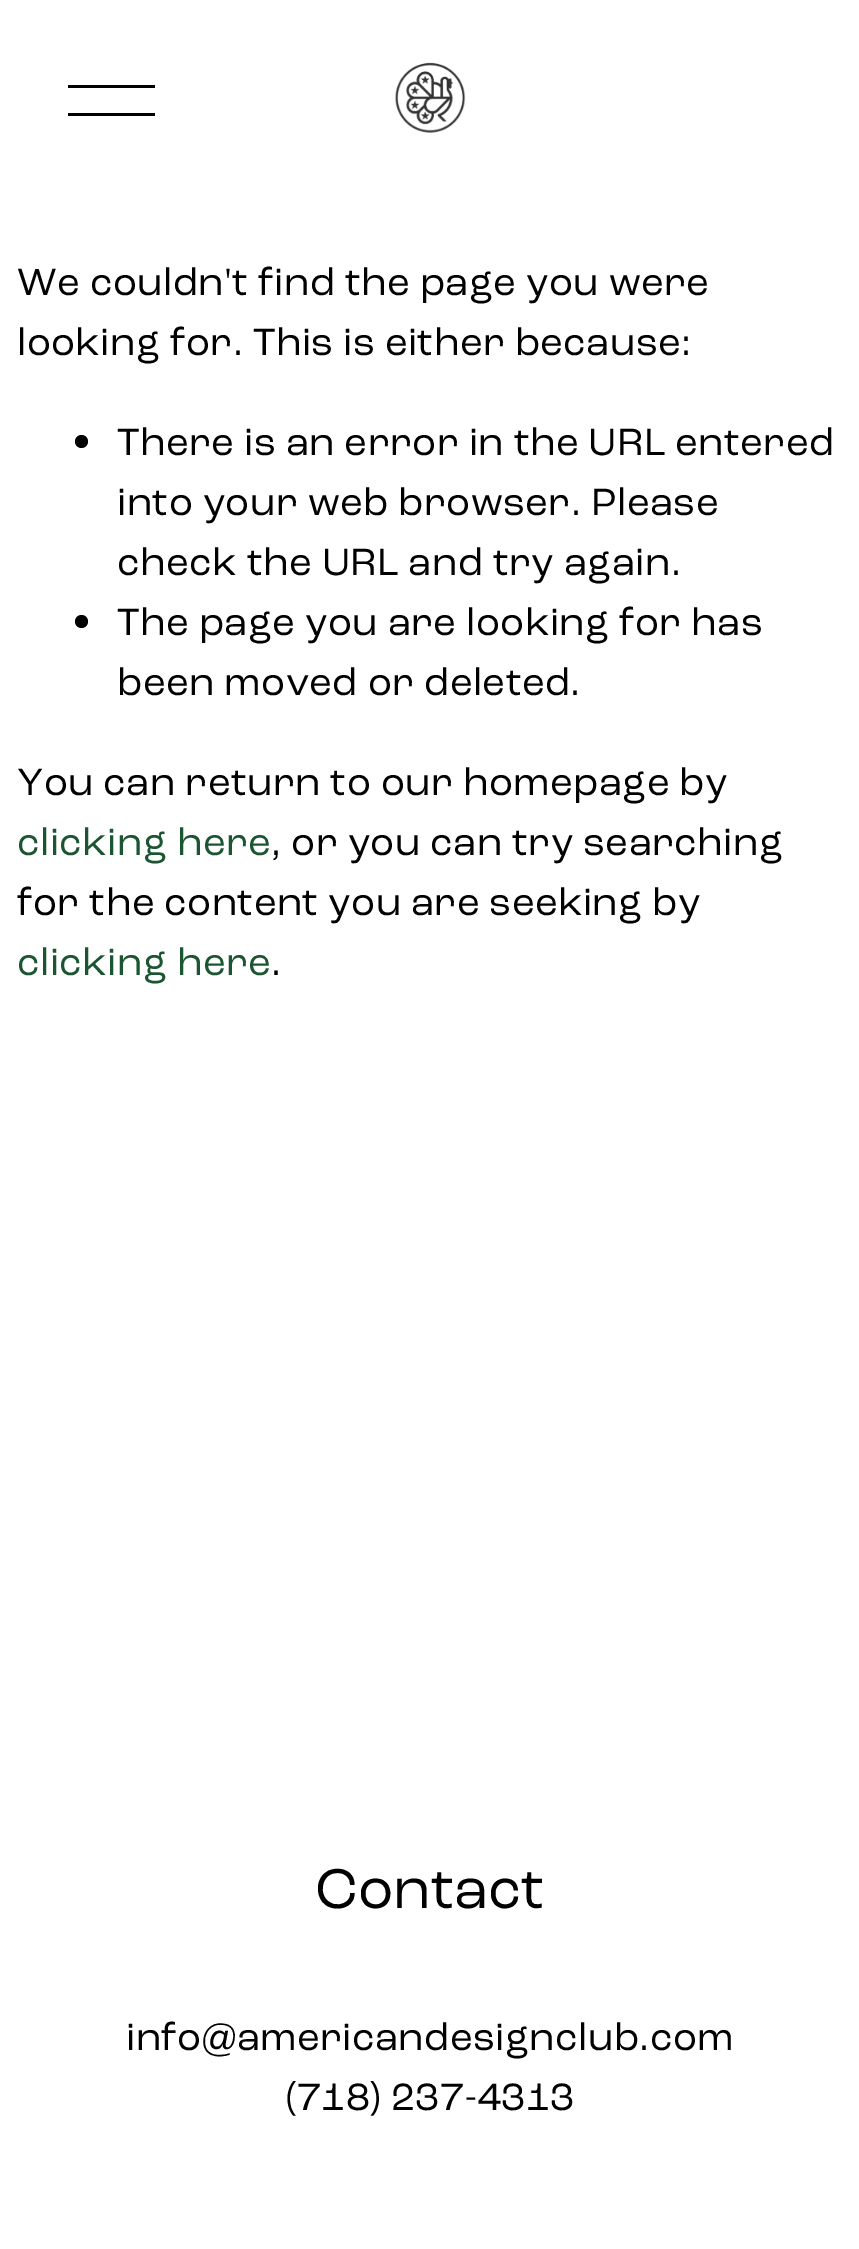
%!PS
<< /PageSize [859 2249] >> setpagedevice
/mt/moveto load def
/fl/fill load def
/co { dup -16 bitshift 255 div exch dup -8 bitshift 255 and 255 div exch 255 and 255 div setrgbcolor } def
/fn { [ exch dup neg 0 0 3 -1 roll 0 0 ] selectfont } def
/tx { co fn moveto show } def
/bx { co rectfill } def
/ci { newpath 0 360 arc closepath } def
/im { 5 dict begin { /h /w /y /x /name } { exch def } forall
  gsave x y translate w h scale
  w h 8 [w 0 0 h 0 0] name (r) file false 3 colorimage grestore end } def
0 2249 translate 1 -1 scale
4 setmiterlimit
0 0 859 2249 16#FFFFFF bx
68 85 87 3 16#000000 bx
68 113 87 3 16#000000 bx
(media/1.raw) 395 62 71 71 im
81.5 441.5 6.5 ci fl
81.5 621.5 6.5 ci fl
/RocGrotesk-Regular 40 fn
17 295 mt .4 0 (We couldn't find the page you were) ashow
17 355 mt .4 0 (looking for. This is either because:) ashow
117 455 mt .4 0 (There is an error in the URL entered) ashow
117 515 mt .4 0 (into your web browser. Please) ashow
117 575 mt .4 0 (check the URL and try again.) ashow
117 635 mt .4 0 (The page you are looking for has) ashow
117 695 mt .4 0 (been moved or deleted.) ashow
17 795 mt .4 0 (You can return to our homepage by) ashow
16#1C5532 co
17 855 mt .4 0 (clicking here) ashow
16#000000 co
271 855 mt .4 0 (, or you can try searching) ashow
17 915 mt .4 0 (for the content you are seeking by) ashow
16#1C5532 co
17 975 mt .4 0 (clicking here) ashow
16#000000 co
271 975 mt .4 0 (.) ashow
(Contact) 315 1908 /RocGrotesk-Regular 59 16#000000 tx
/RocGrotesk-Regular 40 fn
126 2050 mt .4 0 (info@americandesignclub.com) ashow
286 2110 mt .4 0 (\(718\) 237-4313) ashow
showpage
